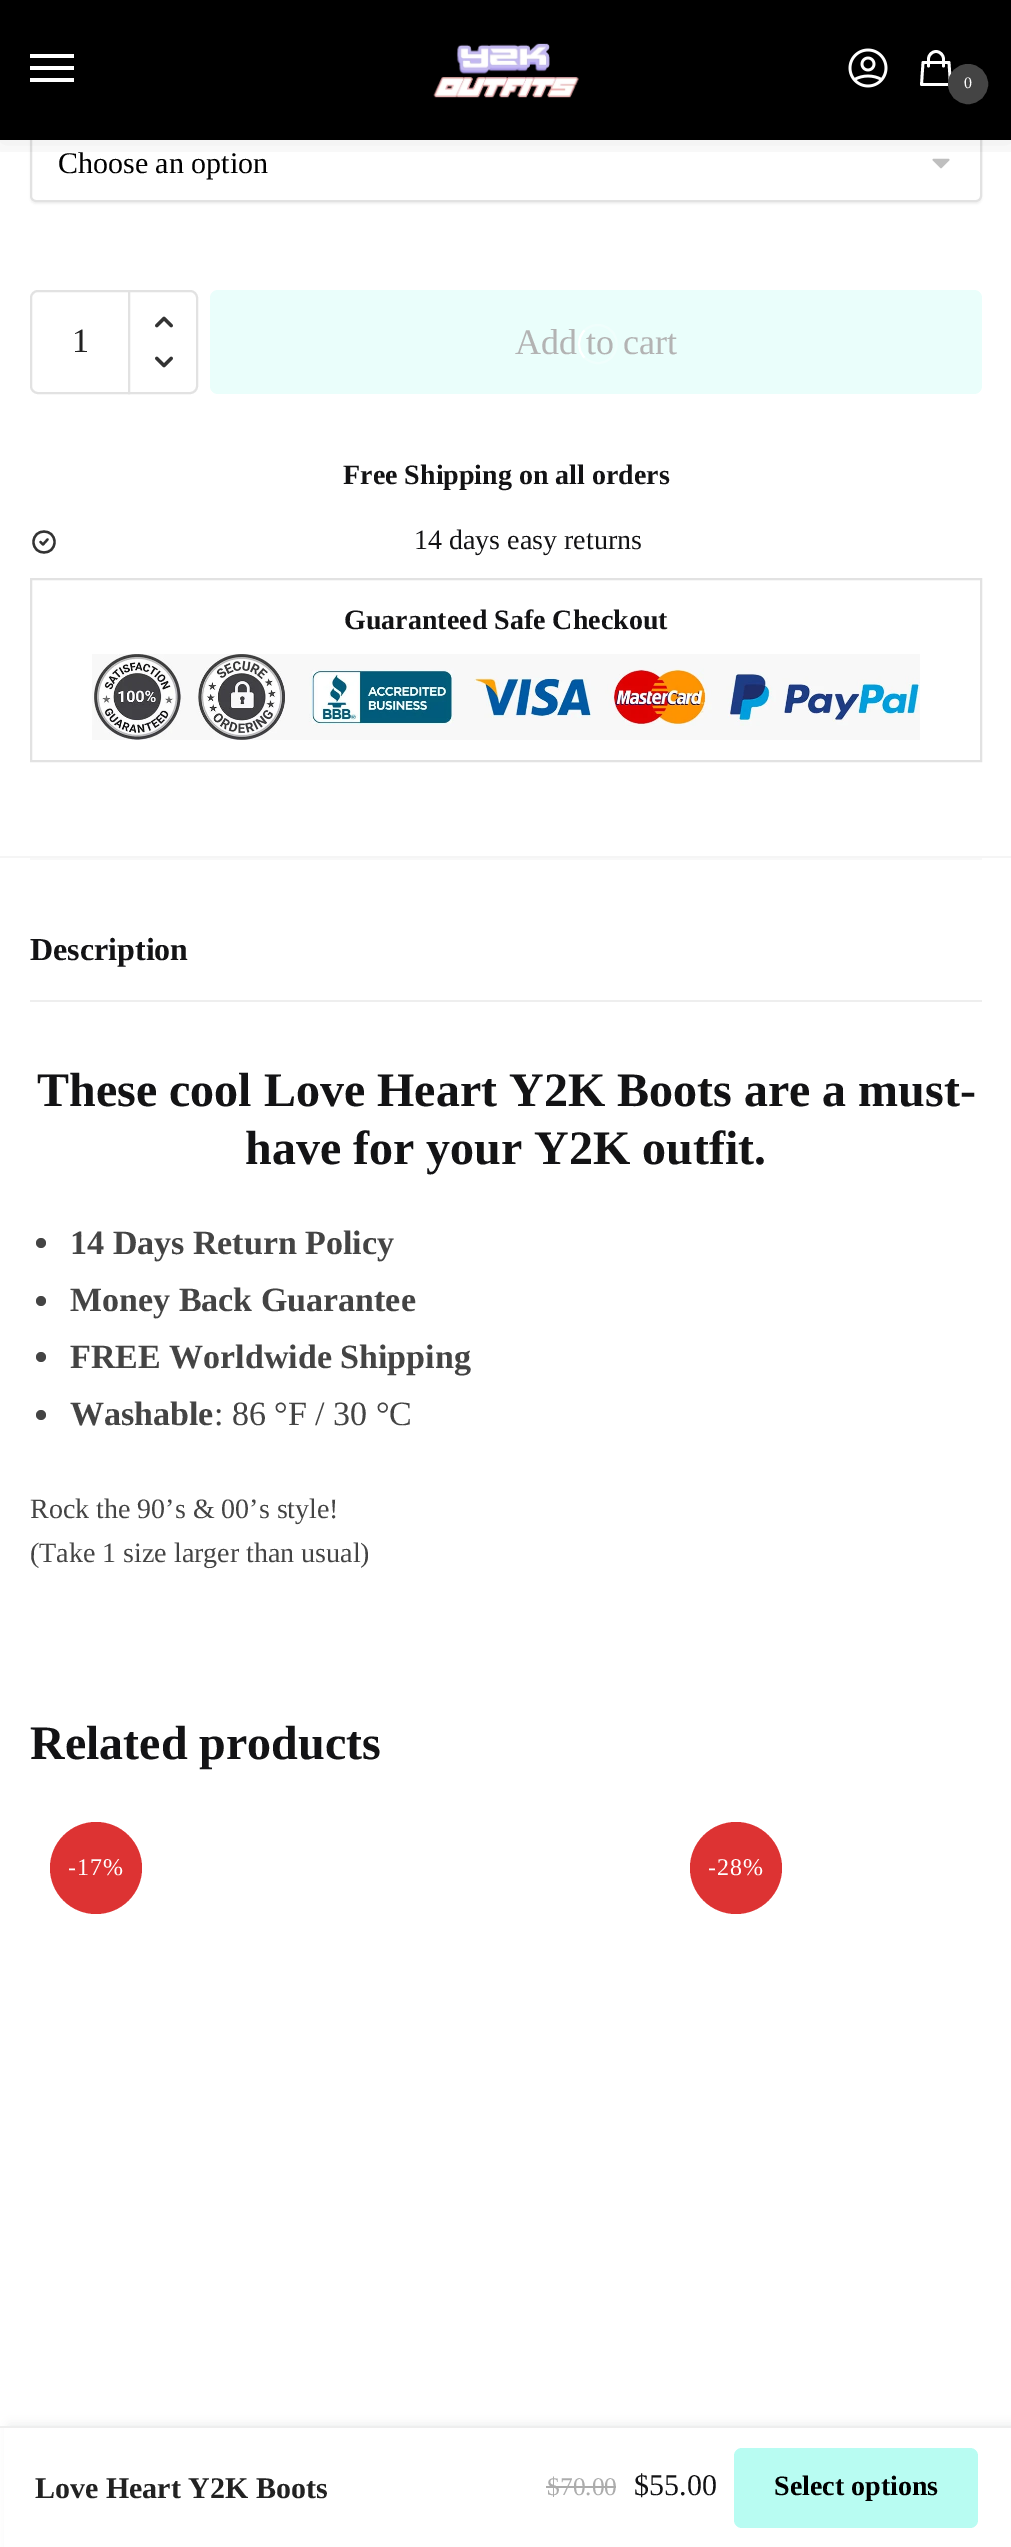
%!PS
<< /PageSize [1011 2547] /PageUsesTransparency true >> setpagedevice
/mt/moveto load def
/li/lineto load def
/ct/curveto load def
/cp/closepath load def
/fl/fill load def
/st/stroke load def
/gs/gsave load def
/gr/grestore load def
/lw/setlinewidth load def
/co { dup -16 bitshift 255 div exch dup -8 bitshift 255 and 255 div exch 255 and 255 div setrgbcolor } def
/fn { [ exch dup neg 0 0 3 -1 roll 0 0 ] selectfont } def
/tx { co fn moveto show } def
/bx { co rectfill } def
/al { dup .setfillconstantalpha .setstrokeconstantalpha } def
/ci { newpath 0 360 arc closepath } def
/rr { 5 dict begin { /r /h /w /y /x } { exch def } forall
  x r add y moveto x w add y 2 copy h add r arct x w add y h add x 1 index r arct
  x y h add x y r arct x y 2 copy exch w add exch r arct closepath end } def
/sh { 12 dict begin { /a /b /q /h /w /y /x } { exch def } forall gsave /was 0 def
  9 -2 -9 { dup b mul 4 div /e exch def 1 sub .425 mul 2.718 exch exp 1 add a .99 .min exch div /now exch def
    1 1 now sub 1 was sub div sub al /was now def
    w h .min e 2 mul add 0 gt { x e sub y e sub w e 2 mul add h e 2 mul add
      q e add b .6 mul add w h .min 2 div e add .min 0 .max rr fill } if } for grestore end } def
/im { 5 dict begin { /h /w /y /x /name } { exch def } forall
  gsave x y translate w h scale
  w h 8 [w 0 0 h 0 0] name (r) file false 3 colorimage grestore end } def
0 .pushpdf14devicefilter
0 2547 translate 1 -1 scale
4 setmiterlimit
0 0 1011 2547 16#FFFFFF bx
16#000000 co
30 124 952 80 6 1 .05 sh
16#FFFFFF co
30 122 952 80 6 rr fl
(media/3.raw) 932 158 18 11 im
16#E2E2E2 co
2 lw
31 123 950 78 5 rr st
0 0 1011 140 16#000000 bx
gs
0 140 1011 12 rectclip
0 2 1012 140 0 15 .08 sh
gr
30 54 44 4 16#FFFFFF bx
30 66 44 4 16#FFFFFF bx
30 78 44 4 16#FFFFFF bx
(media/1.raw) 433 43 146 55 im
(media/2.raw) 848 48 40 40 im
2.8 lw
1 setlinecap
1 setlinejoin
943.5 66 mt 943.5 59 li 943.5 55 940 51.5 936 51.5 ct 932 51.5 928.5 55 928.5 59 ct 928.5 66 li 923 62.5 mt 949 62.5 li 950.5 84.5 li 921.5 84.5 li cp st
16#444444 co
968 84 19 ci gs fl gr
2 lw
0 setlinecap
0 setlinejoin
st
16#E2E2E2 co
38 291 mt 129 291 li 129 393 li 38 393 li 34 393 31 390 31 386 ct 31 298 li 31 294 34 291 38 291 ct cp st
16#FFFFFF co
129 291 mt 190 291 li 194 291 197 294 197 298 ct 197 386 li 197 390 194 393 190 393 ct 129 393 li cp gs fl gr
16#E2E2E2 co
st
(media/4.raw) 155 316 18 12 im
(media/5.raw) 155 356 18 12 im
16#EAFEFB co
210 290 772 104 8 rr fl
16#333333 co
2.3 lw
1 setlinecap
1 setlinejoin
40.5 542 mt 43 544.5 li 47.5 539.5 li 54.5 542 mt 54.5 556 33.5 556 33.5 542 ct 33.5 528 54.5 528 54.5 542 ct cp st
16#E2E2E2 co
2 lw
0 setlinecap
0 setlinejoin
31 579 950 182 rectstroke
(media/6.raw) 92 654 828 86 im
16#1B1F23 co
10 2426 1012 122 0 5 .1 sh
4 2428 1007 119 16#FFFFFF bx
0 2426 1011 2 16#EEEEEE bx
546 2486 70 2 16#ACACAC bx
16#B8FCF2 co
734 2448 244 80 8 rr fl
0 856 1011 2 16#F5F5F5 bx
30 858 952 2 16#F8F8F8 bx
30 1000 952 2 16#EEEEEE bx
16#444444 co
41 1243 5 ci fl
41 1301 5 ci fl
41 1357 5 ci fl
41 1415 5 ci fl
16#DD3333 co
96 1868 46 ci fl
736 1868 46 ci fl
(0) 964 88 /LiberationSerif-Regular 16 16#FFFFFF tx
(Choose an option) 58 173 /LiberationSerif-Regular 30 16#000000 tx
(1) 72 352 /LiberationSerif-Regular 34 16#222222 tx
(Add to cart) 515 354 /LiberationSerif-Regular 36 16#B3B3B3 tx
16#F0FEFC co
584.5 330.5 mt 589 326 595.5 324 601.5 325.5 ct 624 330 620.5 363 598 363 ct 593 363 588 361 584.5 357.5 ct st
16#FFFFFF co
584.5 357.5 mt 577 350 577 338 584.5 330.5 ct st
(Free Shipping on all orders) 343 484 /LiberationSerif-Bold 28 16#131315 tx
(14 days easy returns) 414 549 /LiberationSerif-Regular 28 16#131315 tx
(Guaranteed Safe Checkout) 344 629 /LiberationSerif-Bold 28 16#131315 tx
(Love Heart Y2K Boots) 35 2498 /LiberationSerif-Bold 30 16#222222 tx
($70.00) 547 2495 /LiberationSerif-Regular 25.5 16#ACACAC tx
($55.00) 634 2495 /LiberationSerif-Regular 30 16#131315 tx
(Select options) 774 2495 /LiberationSerif-Bold 28 16#000000 tx
(Description) 30 960 /LiberationSerif-Bold 32 16#131315 tx
(These cool Love Heart Y2K Boots are a must-) 37 1106 /LiberationSerif-Bold 48 16#131315 tx
(have for your Y2K outfit.) 245 1164 /LiberationSerif-Bold 48 16#131315 tx
(14 Days Return Policy) 70 1254 /LiberationSerif-Bold 34 16#444444 tx
(Money Back Guarantee) 70 1311 /LiberationSerif-Bold 34 16#444444 tx
(FREE Worldwide Shipping) 70 1368 /LiberationSerif-Bold 34 16#444444 tx
(Washable) 70 1425 /LiberationSerif-Bold 34 16#444444 tx
(: 86 °F / 30 °C) 214 1425 /LiberationSerif-Regular 34 16#444444 tx
(Rock the 90’s & 00’s style!) 30 1518 /LiberationSerif-Regular 28 16#444444 tx
(\(Take 1 size larger than usual\)) 30 1562 /LiberationSerif-Regular 28 16#444444 tx
(Related products) 30 1759 /LiberationSerif-Bold 48 16#131315 tx
/LiberationSerif-Regular 24 fn
16#FFFFFF co
68 1875 mt 1 0 (-17%) ashow
708 1875 mt 1 0 (-28%) ashow
.poppdf14devicefilter showpage
